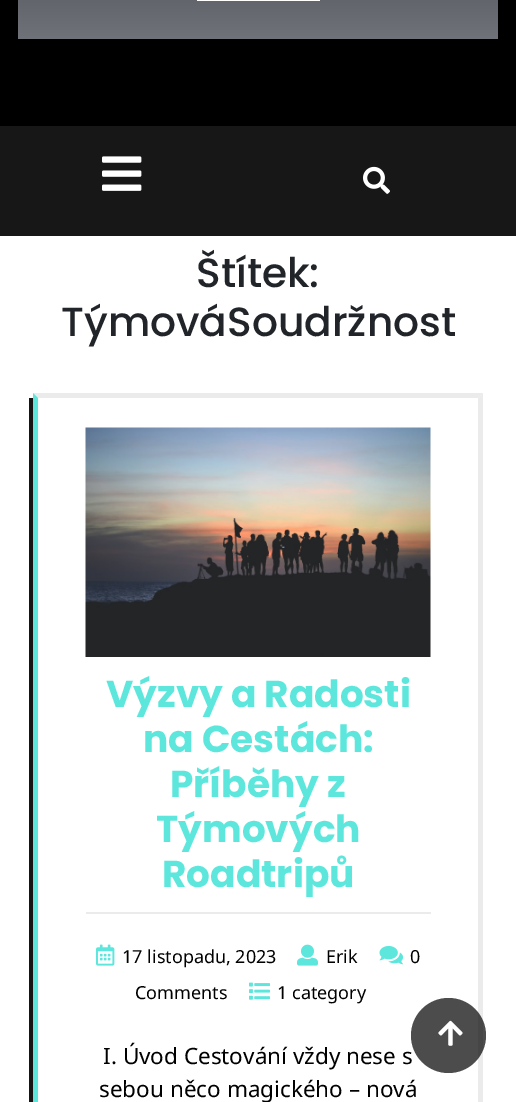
%!PS
<< /PageSize [516 1102] /PageUsesTransparency true >> setpagedevice
/mt/moveto load def
/li/lineto load def
/cp/closepath load def
/fl/fill load def
/gs/gsave load def
/gr/grestore load def
/co { dup -16 bitshift 255 div exch dup -8 bitshift 255 and 255 div exch 255 and 255 div setrgbcolor } def
/fn { [ exch dup neg 0 0 3 -1 roll 0 0 ] selectfont } def
/tx { co fn moveto show } def
/bx { co rectfill } def
/al { dup .setfillconstantalpha .setstrokeconstantalpha } def
/ci { newpath 0 360 arc closepath } def
/im { 5 dict begin { /h /w /y /x /name } { exch def } forall
  gsave x y translate w h scale
  w h 8 [w 0 0 h 0 0] name (r) file false 3 colorimage grestore end } def
0 .pushpdf14devicefilter
0 1102 translate 1 -1 scale
4 setmiterlimit
0 0 516 1102 16#FFFFFF bx
0 0 516 126 16#000000 bx
gs 18 0 mt 498 0 li 498 39 li 18 39 li cp clip newpath
<< /ShadingType 2 /ColorSpace /DeviceRGB /Coords [258 -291 258 39] /Extend [true true] /Function << /FunctionType 2 /Domain [0 1] /C0 [.016 .016 .02] /C1 [.435 .447 .471] /N 1 >> >> shfill gr
197 0 123 1 16#FFFFFF bx
0 126 516 110 16#171717 bx
(media/1.raw) 102 156 40 35 im
(media/2.raw) 363 166 27 28 im
16#151515 co
29 398 mt 29 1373 li 479 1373 li 479 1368 li 33 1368 li 33 398 li cp fl
16#EBEBEB co
33 393 mt 483 393 li 478 398 li 38 398 li cp fl
483 393 mt 483 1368 li 478 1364 li 478 398 li cp fl
16#5DE6DC co
33 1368 mt 33 393 li 38 398 li 38 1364 li cp fl
(media/3.raw) 85 427 346 230 im
86 912 345 2 16#EBEBEB bx
(media/4.raw) 96 944 19 22 im
(media/5.raw) 297 944 21 22 im
(media/6.raw) 379 945 25 20 im
(media/7.raw) 249 982 21 18 im
(Štítek:) 196 287 /Poppins-Medium 40.75 16#212529 tx
(TýmováSoudržnost) 61 336 /Poppins-Medium 40.75 16#212529 tx
(Výzvy a Radosti) 106 707 /Poppins-Bold 37.5 16#5DE6DC tx
(na Cestách:) 143 752 /Poppins-Bold 37.5 16#5DE6DC tx
(Příběhy z) 170 797 /Poppins-Bold 37.5 16#5DE6DC tx
(Týmových) 156 842 /Poppins-Bold 37.5 16#5DE6DC tx
(Roadtripů) 162 887 /Poppins-Bold 37.5 16#5DE6DC tx
(17 listopadu, 2023) 122 963 /NotoSans-Regular 18 16#000000 tx
(Erik) 326 963 /NotoSans-Regular 18 16#000000 tx
(0) 410 963 /NotoSans-Regular 18 16#000000 tx
(Comments) 135 999 /NotoSans-Regular 18 16#000000 tx
(1 category) 277 999 /NotoSans-Regular 18 16#000000 tx
(I. Úvod Cestování vždy nese s) 103 1064 /NotoSans-Regular 22.5 16#000000 tx
(sebou něco magického – nová) 99 1097 /NotoSans-Regular 22.5 16#000000 tx
0.7 al
448.5 1035.5 37.5 ci fl
1 al
(media/8.raw) 438 1020 25 26 im
.poppdf14devicefilter showpage
